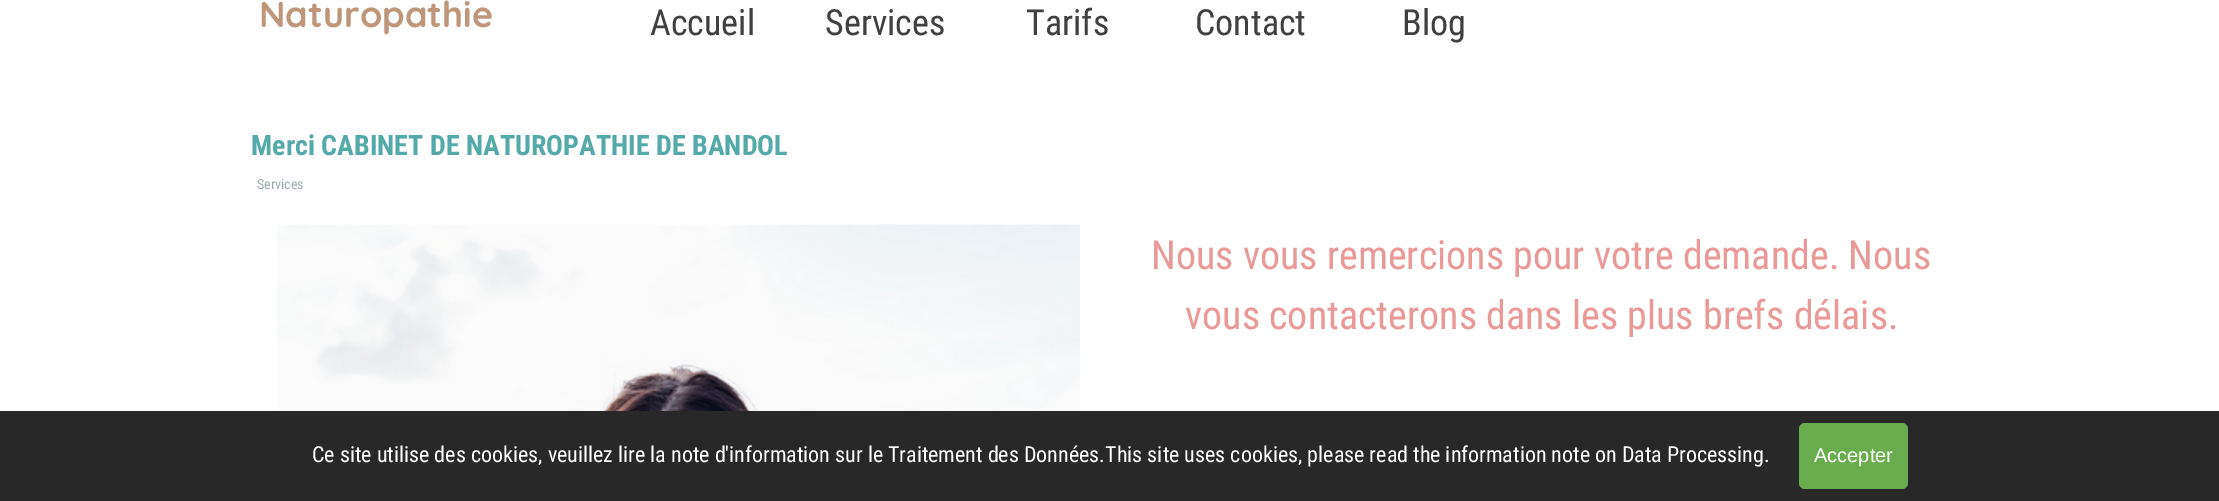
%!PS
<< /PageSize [2219 501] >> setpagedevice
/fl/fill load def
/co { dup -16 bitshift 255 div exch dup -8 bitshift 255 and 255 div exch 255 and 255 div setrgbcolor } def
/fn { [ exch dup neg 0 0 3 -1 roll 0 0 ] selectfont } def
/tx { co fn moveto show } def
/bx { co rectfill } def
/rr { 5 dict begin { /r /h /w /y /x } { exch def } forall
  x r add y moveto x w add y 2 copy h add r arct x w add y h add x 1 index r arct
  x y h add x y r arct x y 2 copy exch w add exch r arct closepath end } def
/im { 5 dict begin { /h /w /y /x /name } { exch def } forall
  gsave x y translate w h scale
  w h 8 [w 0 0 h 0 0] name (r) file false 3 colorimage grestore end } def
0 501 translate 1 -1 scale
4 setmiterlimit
0 0 2219 501 16#FFFFFF bx
(media/1.raw) 277 224 803 187 im
0 411 2219 90 16#282828 bx
16#69AC4D co
1799 423 109 66 6 rr fl
(Naturopathie) 259 27 /Quicksand-Bold 36 16#C0967A tx
(Accueil) 650 35 /RobotoCondensed-Regular 36 16#404040 tx
(Services) 825 35 /RobotoCondensed-Regular 36 16#404040 tx
(Tarifs) 1026 35 /RobotoCondensed-Regular 36 16#404040 tx
(Contact) 1195 35 /RobotoCondensed-Regular 36 16#404040 tx
(Blog) 1402 35 /RobotoCondensed-Regular 36 16#404040 tx
(Merci CABINET DE NATUROPATHIE DE BANDOL) 251 155 /RobotoCondensed-Bold 28 16#54A9A9 tx
(Services) 257 189 /RobotoCondensed-Regular 14 16#9FABB0 tx
(Nous vous remercions pour votre demande. Nous) 1151 269 /RobotoCondensed-Regular 40 16#EA9999 tx
(vous contacterons dans les plus brefs délais.) 1185 329 /RobotoCondensed-Regular 40 16#EA9999 tx
(Ce site utilise des cookies, veuillez lire la note d'information sur le Traitement des Données.This site uses cookies, please read the information note on Data Processing.) 312 462 /RobotoCondensed-Regular 22 16#FFFFFF tx
(Accepter) 1814 462 /LiberationSans-Regular 20 16#FFFFFF tx
showpage
